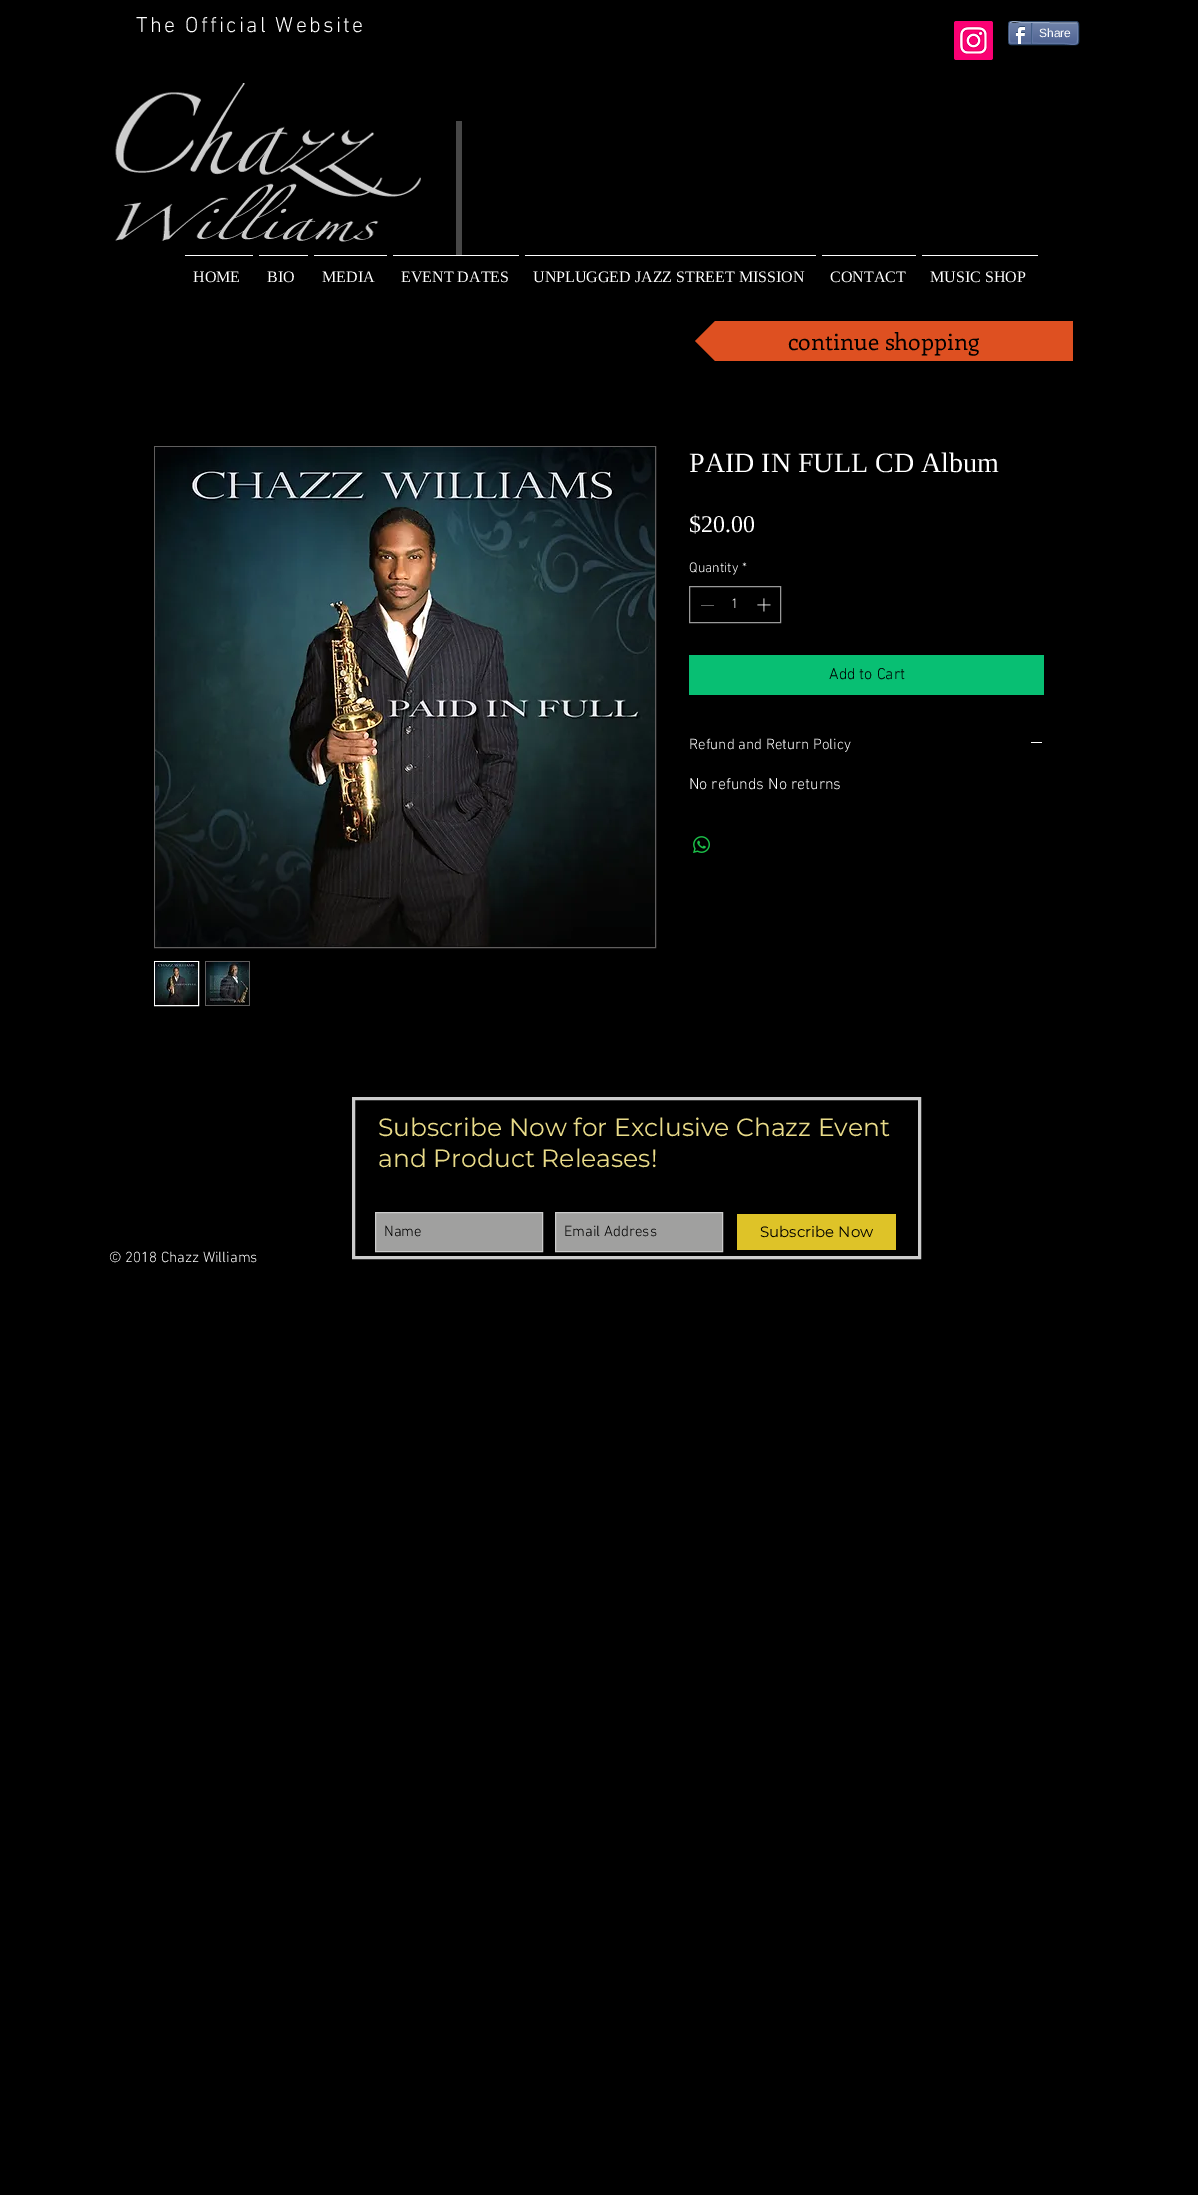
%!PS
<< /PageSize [1198 2195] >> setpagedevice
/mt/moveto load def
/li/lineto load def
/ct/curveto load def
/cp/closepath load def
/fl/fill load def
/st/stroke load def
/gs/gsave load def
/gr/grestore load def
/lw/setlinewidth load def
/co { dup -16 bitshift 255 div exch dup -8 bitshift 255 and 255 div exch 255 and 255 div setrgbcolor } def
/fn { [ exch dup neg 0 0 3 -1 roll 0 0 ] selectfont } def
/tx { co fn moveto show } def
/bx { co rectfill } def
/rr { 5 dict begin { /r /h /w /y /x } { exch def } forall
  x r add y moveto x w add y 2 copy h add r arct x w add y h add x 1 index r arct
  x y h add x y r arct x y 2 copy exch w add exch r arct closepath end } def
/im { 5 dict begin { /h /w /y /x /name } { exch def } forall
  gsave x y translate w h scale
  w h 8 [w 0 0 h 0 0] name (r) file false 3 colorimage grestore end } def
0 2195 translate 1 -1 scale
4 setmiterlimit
0 0 1198 2195 16#000000 bx
(media/1.raw) 954 21 39 39 im
16#2D4565 co
1008.5 21.5 70 23 2.5 rr st
(media/2.raw) 1009 23 69 21 im
16#9AABC6 co
1010 23 mt 1013 20 1018 22.5 1022 22.5 ct 1077 23 li st
16#6F83AD co
1077 23 mt 1078 23.5 1078 42.5 1077 43 ct st
16#6176A3 co
1077 43 mt 1074 46 1069 43.5 1065 43.5 ct 1010 43 li st
16#6F83AD co
1010 43 mt 1009 42.5 1009 23.5 1010 23 ct st
(media/3.raw) 1015 26 10 18 im
1031 23 1 21 16#425E85 bx
1032 23 1 20 16#6176A3 bx
(media/4.raw) 115 83 306 159 im
456 121 6 134 16#474747 bx
185 255 68 1 16#FFFFFF bx
259 255 49 1 16#FFFFFF bx
314 255 73 1 16#FFFFFF bx
393 255 126 1 16#FFFFFF bx
525 255 291 1 16#FFFFFF bx
822 255 94 1 16#FFFFFF bx
922 255 116 1 16#FFFFFF bx
gs
695 321 378 40 rectclip
16#DE5021 co
745 341 mt 695 341 li 745 291 li cp 695 341 mt 745 341 li 745 391 li cp fl
gr
745 321 328 40 16#DE5021 bx
16#605E5E co
154.5 446.5 501 501 rectstroke
(media/5.raw) 155 447 500 500 im
16#FFFFFF co
154.5 961.5 44 44 rectstroke
(media/6.raw) 155 962 43 43 im
205 961 45 45 16#605E5E bx
(media/7.raw) 206 962 43 43 im
16#999999 co
689.5 586.5 91 36 rectstroke
701 605 13 1 16#646464 bx
(media/8.raw) 757 598 14 14 im
689 655 355 40 16#08BF73 bx
1031 742 11 1 16#FFFFFF bx
(media/9.raw) 693 836 17 17 im
16#CCCCCC co
3 lw
353.5 1098.5 566 159 rectstroke
16#A0A09F co
375.5 1212.5 mt 542.5 1212.5 li 542.5 1251.5 li 375.5 1251.5 li cp gs fl gr
16#CCCCCC co
1 lw
st
16#A0A09F co
555.5 1212.5 mt 722.5 1212.5 li 722.5 1251.5 li 555.5 1251.5 li cp gs fl gr
16#CCCCCC co
st
737 1214 159 36 16#DEC328 bx
/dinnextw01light-Light 22 fn
16#FFFFFF co
136 32 mt 2.25 0 (The Official Website) ashow
(Share) 1039 37 /LiberationSans-Regular 12 16#FFFFFF tx
(HOME) 193 282 /LiberationSerif-Regular 16 16#FFFFFF tx
(BIO) 267 282 /LiberationSerif-Regular 16 16#FFFFFF tx
(MEDIA) 322 282 /LiberationSerif-Regular 16 16#FFFFFF tx
(EVENT DATES) 401 282 /LiberationSerif-Regular 16 16#FFFFFF tx
(UNPLUGGED JAZZ STREET MISSION) 533 282 /LiberationSerif-Regular 16 16#FFFFFF tx
(CONTACT) 830 282 /LiberationSerif-Regular 16 16#FFFFFF tx
(MUSIC SHOP) 930 282 /LiberationSerif-Regular 16 16#FFFFFF tx
(continue shopping) 788 350 /Enriqueta-Regular 23 16#000000 tx
(PAID IN FULL CD Album) 689 472 /LiberationSerif-Regular 28 16#FFFFFF tx
($20.00) 689 532 /LiberationSerif-Regular 24 16#FFFFFF tx
(Quantity) 689 572 /dinnextw01light-Light 14 16#FFFFFF tx
(*) 742 572 /dinnextw01light-Light 14 16#FFFFFF tx
(1) 731 608 /dinnextw01light-Light 14 16#FFFFFF tx
(Add to Cart) 829 679 /dinnextw01light-Light 16 16#000000 tx
(Refund and Return Policy) 689 749 /dinnextw01light-Light 15 16#FFFFFF tx
(No refunds No returns) 689 789 /dinnextw01light-Light 16 16#FFFFFF tx
(Subscribe Now for Exclusive Chazz Event) 378 1136 /Montserrat-Regular 25 16#E9DB89 tx
(and Product Releases!) 378 1167 /Montserrat-Regular 25 16#E9DB89 tx
(Name) 384 1236 /dinnextw01light-Light 15 16#000000 tx
(Email Address) 564 1236 /dinnextw01light-Light 15 16#000000 tx
(Subscribe Now) 760 1237 /Montserrat-Regular 15 16#000000 tx
(© 2018 Chazz Williams) 109 1262 /dinnextw01light-Light 15 16#FFFFFF tx
showpage
